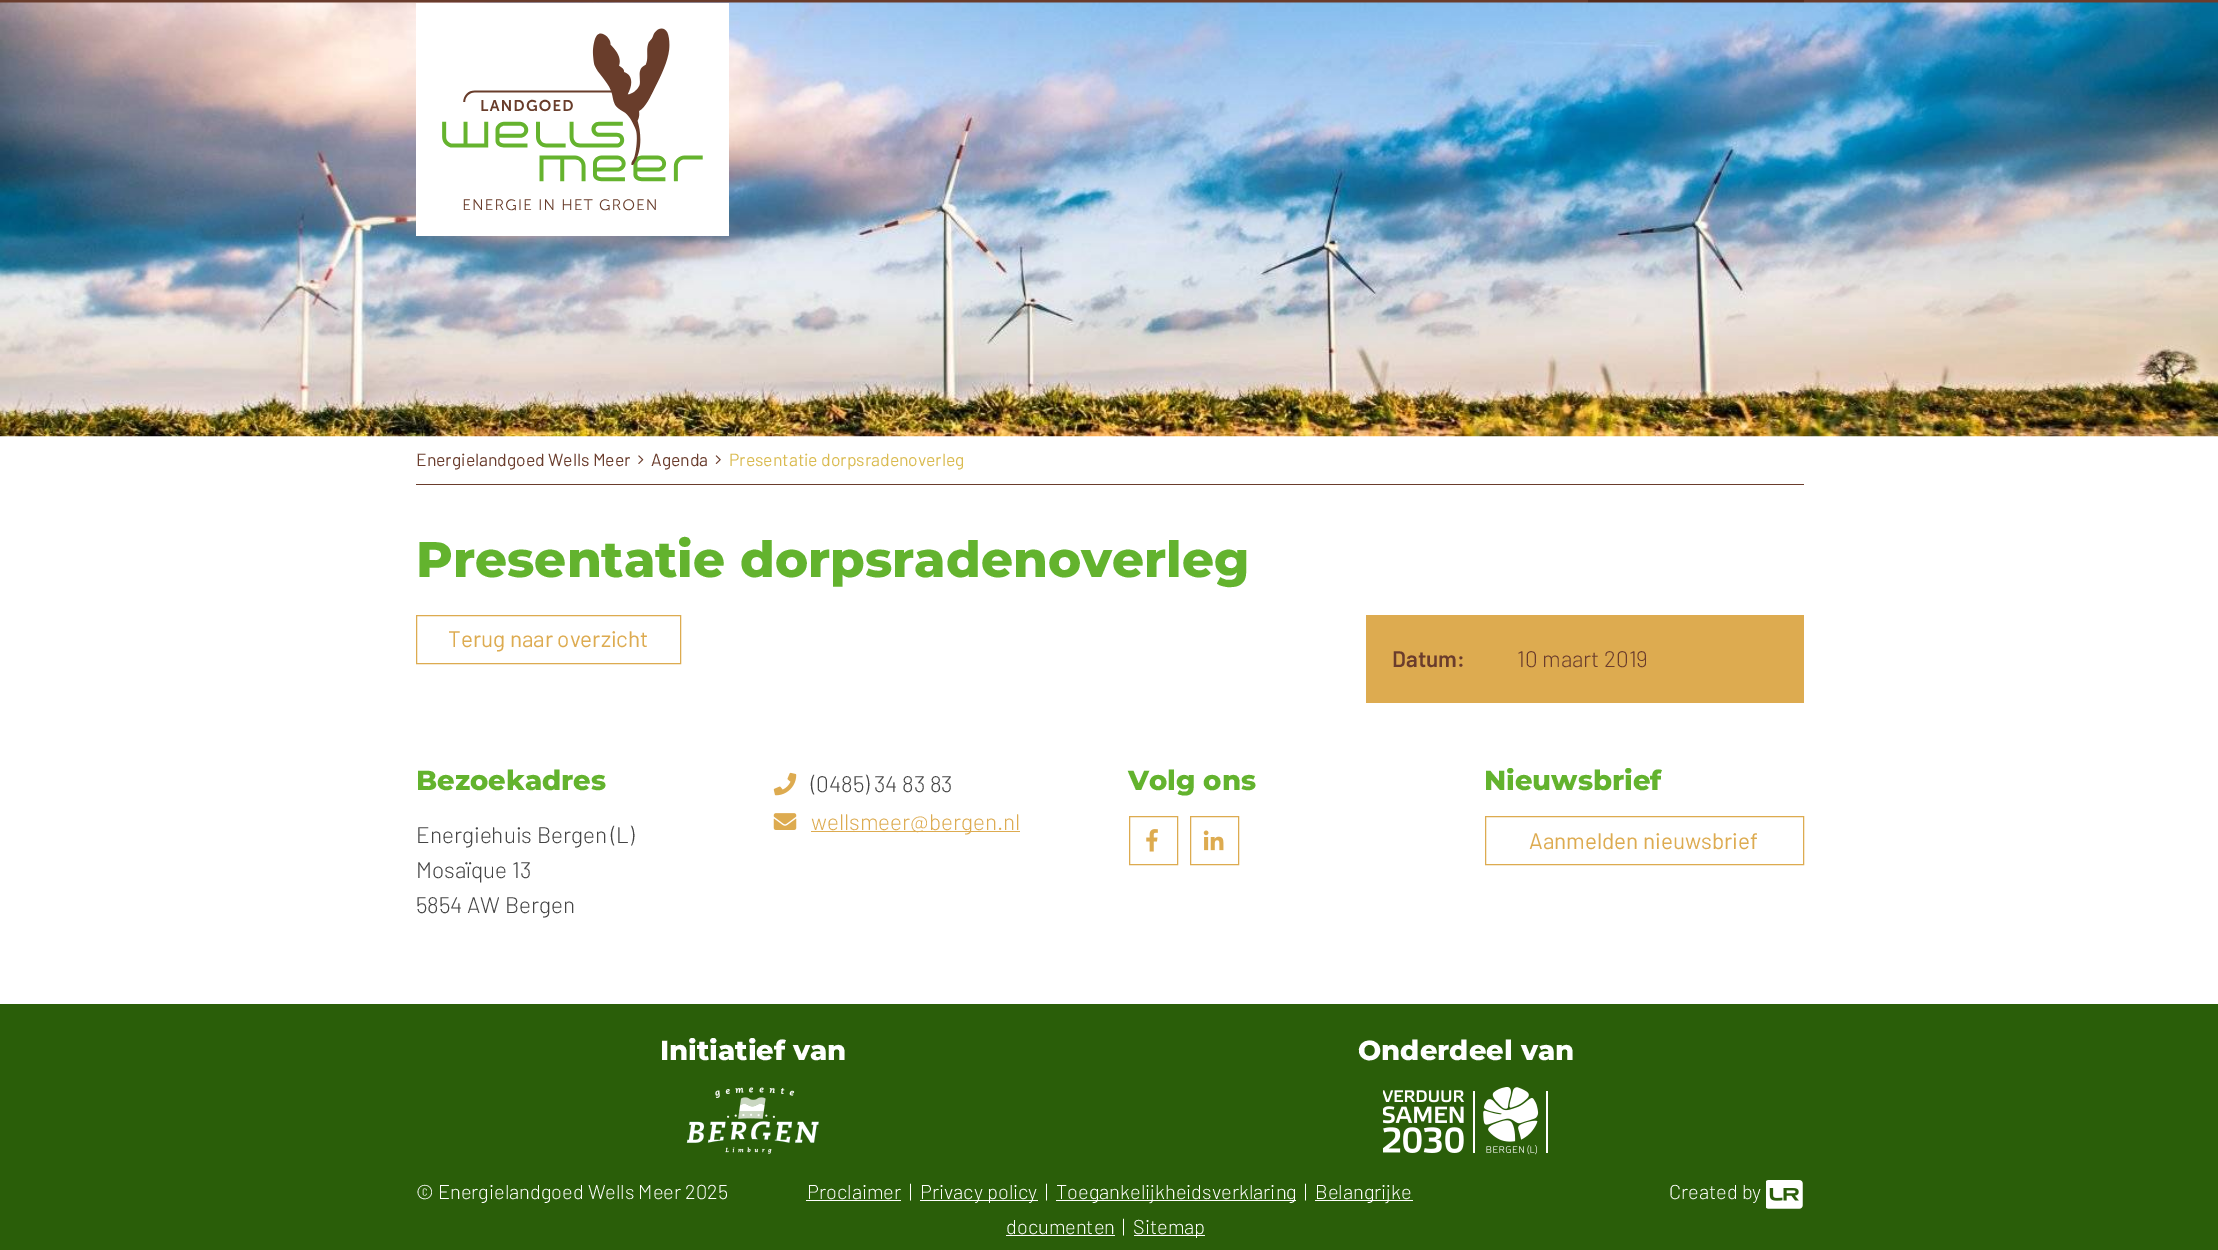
%!PS
<< /PageSize [2218 1250] >> setpagedevice
/co { dup -16 bitshift 255 div exch dup -8 bitshift 255 and 255 div exch 255 and 255 div setrgbcolor } def
/fn { [ exch dup neg 0 0 3 -1 roll 0 0 ] selectfont } def
/tx { co fn moveto show } def
/bx { co rectfill } def
/im { 5 dict begin { /h /w /y /x /name } { exch def } forall
  gsave x y translate w h scale
  w h 8 [w 0 0 h 0 0] name (r) file false 3 colorimage grestore end } def
0 1250 translate 1 -1 scale
4 setmiterlimit
0 0 2218 1250 16#FFFFFF bx
0 0 2218 3 16#6A3C2C bx
1588 0 216 3 16#542B1C bx
(media/1.raw) 0 2 2218 435 im
416 3 313 233 16#FFFFFF bx
(media/2.raw) 442 28 261 183 im
416 484 1388 1 16#6A3C2C bx
(media/3.raw) 638 455 6 9 im
(media/4.raw) 715 455 6 9 im
16#DDAB50 co
416.5 615.5 264 48 rectstroke
1366 615 438 88 16#DDAB50 bx
(media/5.raw) 773 772 24 24 im
(media/6.raw) 773 813 24 17 im
811 831 209 1 16#DDAB50 bx
1129.5 816.5 48 48 rectstroke
(media/7.raw) 1146 829 12 23 im
1190.5 816.5 48 48 rectstroke
(media/8.raw) 1203 830 21 21 im
1485.5 816.5 318 48 rectstroke
0 1004 2218 246 16#2A5E09 bx
(media/9.raw) 686 1087 133 67 im
(media/10.raw) 1383 1087 165 68 im
806 1200 95 1 16#FFFFFF bx
920 1200 118 1 16#FFFFFF bx
1056 1200 240 1 16#FFFFFF bx
1315 1200 98 1 16#FFFFFF bx
1006 1235 109 1 16#FFFFFF bx
1134 1235 71 1 16#FFFFFF bx
(media/11.raw) 1766 1180 37 29 im
(Energielandgoed Wells Meer) 416 466 /Barlow-Regular 17.5 16#6A3C2C tx
(Agenda) 651 466 /Barlow-Regular 17.5 16#6A3C2C tx
(Presentatie dorpsradenoverleg) 729 466 /Barlow-Regular 17.5 16#DABB50 tx
(Presentatie dorpsradenoverleg) 416 577 /Montserrat-ExtraBold 50 16#63B32E tx
(Terug naar overzicht) 448 647 /Barlow-Regular 22.5 16#DDAB50 tx
(Datum:) 1392 667 /Barlow-SemiBold 22.5 16#6A3C2C tx
(10 maart 2019) 1517 667 /Barlow-Light 22.5 16#6A3C2C tx
(Bezoekadres) 416 790 /Montserrat-ExtraBold 27.5 16#63B32E tx
(Energiehuis Bergen \(L\)) 416 843 /Barlow-Light 22.5 16#444444 tx
(Mosaïque 13) 416 878 /Barlow-Light 22.5 16#444444 tx
(5854 AW Bergen) 416 913 /Barlow-Light 22.5 16#444444 tx
(\(0485\) 34 83 83) 811 792 /Barlow-Light 22.5 16#444444 tx
(wellsmeer@bergen.nl) 811 830 /Barlow-Light 22.5 16#DDAB50 tx
(Volg ons) 1128 790 /Montserrat-ExtraBold 27.5 16#63B32E tx
(Nieuwsbrief) 1484 790 /Montserrat-ExtraBold 27.5 16#63B32E tx
(Aanmelden nieuwsbrief) 1529 849 /Barlow-Regular 22.5 16#DDAB50 tx
(Initiatief van) 660 1060 /Montserrat-ExtraBold 27.5 16#FFFFFF tx
(Onderdeel van) 1358 1060 /Montserrat-ExtraBold 27.5 16#FFFFFF tx
(© Energielandgoed Wells Meer 2025) 416 1199 /Barlow-Light 20 16#FFFFFF tx
(Proclaimer) 807 1199 /Barlow-Light 20 16#FFFFFF tx
(|) 909 1199 /Barlow-Light 20 16#FFFFFF tx
(Privacy policy) 920 1199 /Barlow-Light 20 16#FFFFFF tx
(|) 1045 1199 /Barlow-Light 20 16#FFFFFF tx
(Toegankelijkheidsverklaring) 1056 1199 /Barlow-Light 20 16#FFFFFF tx
(|) 1304 1199 /Barlow-Light 20 16#FFFFFF tx
(Belangrijke) 1315 1199 /Barlow-Light 20 16#FFFFFF tx
(documenten) 1006 1234 /Barlow-Light 20 16#FFFFFF tx
(|) 1122 1234 /Barlow-Light 20 16#FFFFFF tx
(Sitemap) 1133 1234 /Barlow-Light 20 16#FFFFFF tx
(Created by) 1669 1199 /Barlow-Light 20 16#FFFFFF tx
showpage
